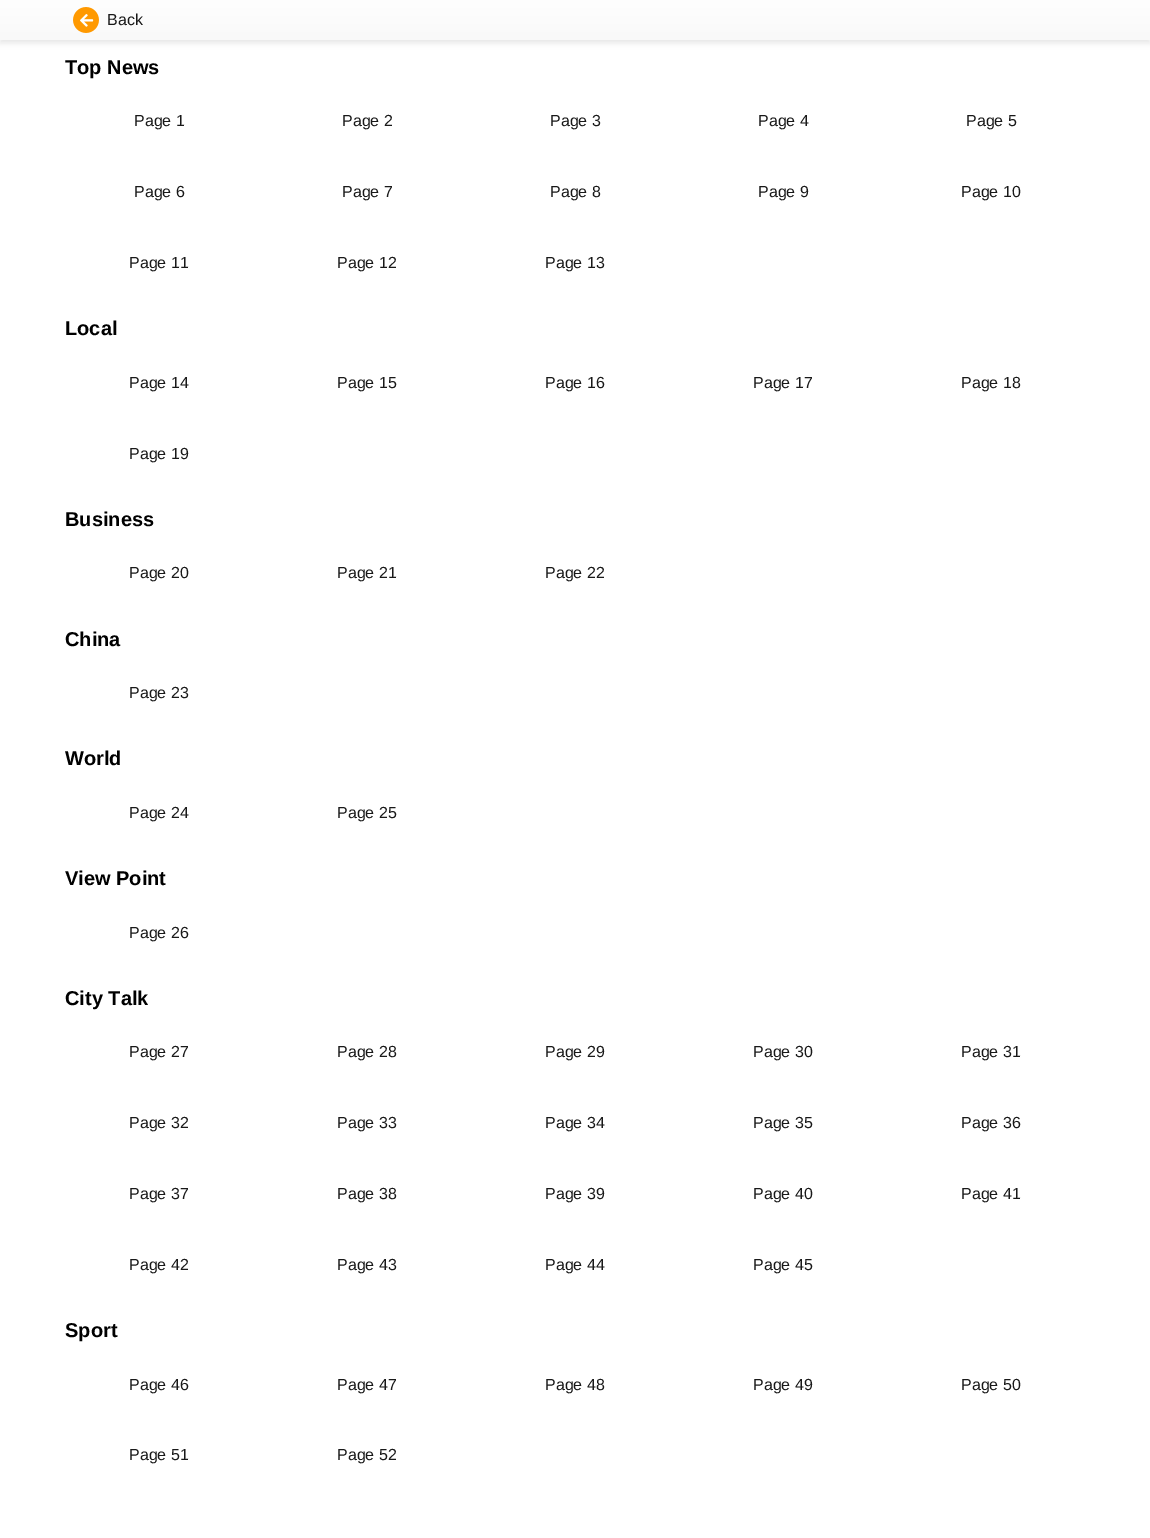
%!PS
<< /PageSize [1150 1538] /PageUsesTransparency true >> setpagedevice
/mt/moveto load def
/li/lineto load def
/cp/closepath load def
/gs/gsave load def
/gr/grestore load def
/co { dup -16 bitshift 255 div exch dup -8 bitshift 255 and 255 div exch 255 and 255 div setrgbcolor } def
/fn { [ exch dup neg 0 0 3 -1 roll 0 0 ] selectfont } def
/tx { co fn moveto show } def
/bx { co rectfill } def
/al { dup .setfillconstantalpha .setstrokeconstantalpha } def
/rr { 5 dict begin { /r /h /w /y /x } { exch def } forall
  x r add y moveto x w add y 2 copy h add r arct x w add y h add x 1 index r arct
  x y h add x y r arct x y 2 copy exch w add exch r arct closepath end } def
/sh { 12 dict begin { /a /b /q /h /w /y /x } { exch def } forall gsave /was 0 def
  9 -2 -9 { dup b mul 4 div /e exch def 1 sub .425 mul 2.718 exch exp 1 add a .99 .min exch div /now exch def
    1 1 now sub 1 was sub div sub al /was now def
    w h .min e 2 mul add 0 gt { x e sub y e sub w e 2 mul add h e 2 mul add
      q e add b .6 mul add w h .min 2 div e add .min 0 .max rr fill } if } for grestore end } def
/im { 5 dict begin { /h /w /y /x /name } { exch def } forall
  gsave x y translate w h scale
  w h 8 [w 0 0 h 0 0] name (r) file false 3 colorimage grestore end } def
0 .pushpdf14devicefilter
0 1538 translate 1 -1 scale
4 setmiterlimit
0 0 1150 1538 16#FFFFFF bx
16#000000 co
0 3 1150 40 0 3 .1 sh
gs 0 0 mt 1150 0 li 1150 40 li 0 40 li cp clip newpath
<< /ShadingType 2 /ColorSpace /DeviceRGB /Coords [575 0 575 40] /Extend [true true] /Function << /FunctionType 2 /Domain [0 1] /C0 [.996 .996 .996] /C1 [.976 .976 .976] /N 1 >> >> shfill gr
(media/1.raw) 73 7 26 26 im
(Back) 107 25 /LiberationSans-Regular 16 16#191919 tx
(Top News) 65 74 /LiberationSans-Bold 20 16#000000 tx
(Page 1) 134 126 /LiberationSans-Regular 16 16#191919 tx
(Page 2) 342 126 /LiberationSans-Regular 16 16#191919 tx
(Page 3) 550 126 /LiberationSans-Regular 16 16#191919 tx
(Page 4) 758 126 /LiberationSans-Regular 16 16#191919 tx
(Page 5) 966 126 /LiberationSans-Regular 16 16#191919 tx
(Page 6) 134 197 /LiberationSans-Regular 16 16#191919 tx
(Page 7) 342 197 /LiberationSans-Regular 16 16#191919 tx
(Page 8) 550 197 /LiberationSans-Regular 16 16#191919 tx
(Page 9) 758 197 /LiberationSans-Regular 16 16#191919 tx
(Page 10) 961 197 /LiberationSans-Regular 16 16#191919 tx
(Page 11) 129 268 /LiberationSans-Regular 16 16#191919 tx
(Page 12) 337 268 /LiberationSans-Regular 16 16#191919 tx
(Page 13) 545 268 /LiberationSans-Regular 16 16#191919 tx
(Local) 65 335 /LiberationSans-Bold 20 16#000000 tx
(Page 14) 129 388 /LiberationSans-Regular 16 16#191919 tx
(Page 15) 337 388 /LiberationSans-Regular 16 16#191919 tx
(Page 16) 545 388 /LiberationSans-Regular 16 16#191919 tx
(Page 17) 753 388 /LiberationSans-Regular 16 16#191919 tx
(Page 18) 961 388 /LiberationSans-Regular 16 16#191919 tx
(Page 19) 129 459 /LiberationSans-Regular 16 16#191919 tx
(Business) 65 526 /LiberationSans-Bold 20 16#000000 tx
(Page 20) 129 578 /LiberationSans-Regular 16 16#191919 tx
(Page 21) 337 578 /LiberationSans-Regular 16 16#191919 tx
(Page 22) 545 578 /LiberationSans-Regular 16 16#191919 tx
(China) 65 646 /LiberationSans-Bold 20 16#000000 tx
(Page 23) 129 698 /LiberationSans-Regular 16 16#191919 tx
(World) 65 765 /LiberationSans-Bold 20 16#000000 tx
(Page 24) 129 818 /LiberationSans-Regular 16 16#191919 tx
(Page 25) 337 818 /LiberationSans-Regular 16 16#191919 tx
(View Point) 65 885 /LiberationSans-Bold 20 16#000000 tx
(Page 26) 129 938 /LiberationSans-Regular 16 16#191919 tx
(City Talk) 65 1005 /LiberationSans-Bold 20 16#000000 tx
(Page 27) 129 1057 /LiberationSans-Regular 16 16#191919 tx
(Page 28) 337 1057 /LiberationSans-Regular 16 16#191919 tx
(Page 29) 545 1057 /LiberationSans-Regular 16 16#191919 tx
(Page 30) 753 1057 /LiberationSans-Regular 16 16#191919 tx
(Page 31) 961 1057 /LiberationSans-Regular 16 16#191919 tx
(Page 32) 129 1128 /LiberationSans-Regular 16 16#191919 tx
(Page 33) 337 1128 /LiberationSans-Regular 16 16#191919 tx
(Page 34) 545 1128 /LiberationSans-Regular 16 16#191919 tx
(Page 35) 753 1128 /LiberationSans-Regular 16 16#191919 tx
(Page 36) 961 1128 /LiberationSans-Regular 16 16#191919 tx
(Page 37) 129 1199 /LiberationSans-Regular 16 16#191919 tx
(Page 38) 337 1199 /LiberationSans-Regular 16 16#191919 tx
(Page 39) 545 1199 /LiberationSans-Regular 16 16#191919 tx
(Page 40) 753 1199 /LiberationSans-Regular 16 16#191919 tx
(Page 41) 961 1199 /LiberationSans-Regular 16 16#191919 tx
(Page 42) 129 1270 /LiberationSans-Regular 16 16#191919 tx
(Page 43) 337 1270 /LiberationSans-Regular 16 16#191919 tx
(Page 44) 545 1270 /LiberationSans-Regular 16 16#191919 tx
(Page 45) 753 1270 /LiberationSans-Regular 16 16#191919 tx
(Sport) 65 1337 /LiberationSans-Bold 20 16#000000 tx
(Page 46) 129 1390 /LiberationSans-Regular 16 16#191919 tx
(Page 47) 337 1390 /LiberationSans-Regular 16 16#191919 tx
(Page 48) 545 1390 /LiberationSans-Regular 16 16#191919 tx
(Page 49) 753 1390 /LiberationSans-Regular 16 16#191919 tx
(Page 50) 961 1390 /LiberationSans-Regular 16 16#191919 tx
(Page 51) 129 1460 /LiberationSans-Regular 16 16#191919 tx
(Page 52) 337 1460 /LiberationSans-Regular 16 16#191919 tx
.poppdf14devicefilter showpage
